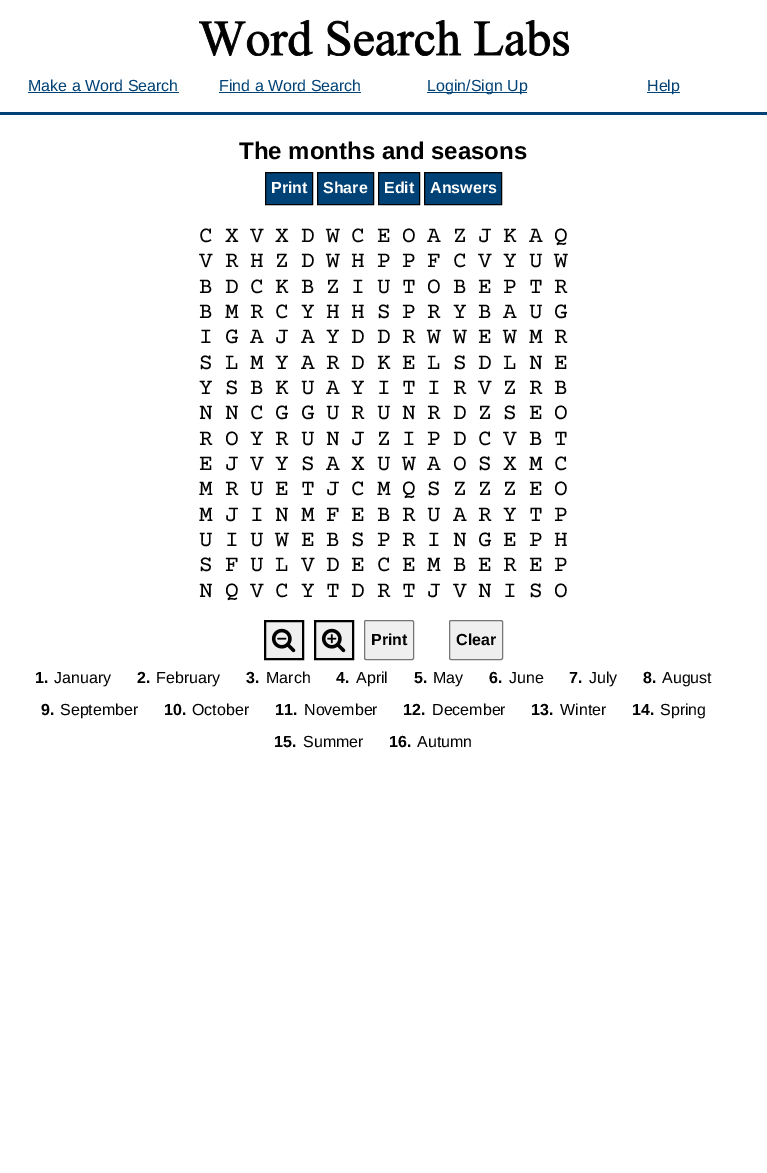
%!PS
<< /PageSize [767 1173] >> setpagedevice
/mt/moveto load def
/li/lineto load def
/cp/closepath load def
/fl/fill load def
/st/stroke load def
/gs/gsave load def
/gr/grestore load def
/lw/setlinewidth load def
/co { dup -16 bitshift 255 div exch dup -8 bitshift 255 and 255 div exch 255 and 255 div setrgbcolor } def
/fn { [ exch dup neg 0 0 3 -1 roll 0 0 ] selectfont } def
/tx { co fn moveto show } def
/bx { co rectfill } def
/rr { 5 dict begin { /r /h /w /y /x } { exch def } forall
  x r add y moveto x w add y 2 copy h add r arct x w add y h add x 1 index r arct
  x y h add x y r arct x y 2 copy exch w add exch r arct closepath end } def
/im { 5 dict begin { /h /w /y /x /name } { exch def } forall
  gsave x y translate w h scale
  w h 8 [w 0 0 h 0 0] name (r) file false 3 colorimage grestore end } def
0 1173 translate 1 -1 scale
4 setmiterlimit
0 0 767 1173 16#FFFFFF bx
(media/1.raw) 199 20 370 36 im
28 92 151 1 16#004276 bx
219 92 142 1 16#004276 bx
427 92 100 1 16#004276 bx
647 92 33 1 16#004276 bx
0 112 767 3 16#004276 bx
265.5 172.5 mt 312.5 172.5 li 312.5 204.5 li 265.5 204.5 li cp gs fl gr
16#000000 co
st
16#004276 co
317.5 172.5 mt 373.5 172.5 li 373.5 204.5 li 317.5 204.5 li cp gs fl gr
16#000000 co
st
16#004276 co
378.5 172.5 mt 419.5 172.5 li 419.5 204.5 li 378.5 204.5 li cp gs fl gr
16#000000 co
st
16#004276 co
424.5 172.5 mt 501.5 172.5 li 501.5 204.5 li 424.5 204.5 li cp gs fl gr
16#000000 co
st
266 622 36 36 16#EFEFEF bx
(media/2.raw) 271 628 25 25 im
16#000000 co
2 lw
265 621 38 38 rectstroke
316 622 36 36 16#EFEFEF bx
(media/3.raw) 321 628 25 25 im
16#000000 co
315 621 38 38 rectstroke
16#EFEFEF co
364.5 620.5 49 39 1.5 rr gs fl gr
16#767676 co
1 lw
st
16#EFEFEF co
449.5 620.5 53 39 1.5 rr gs fl gr
16#767676 co
st
(Make a Word Search) 28 91 /LiberationSans-Regular 16 16#004276 tx
(Find a Word Search) 219 91 /LiberationSans-Regular 16 16#004276 tx
(Login/Sign Up) 427 91 /LiberationSans-Regular 16 16#004276 tx
(Help) 647 91 /LiberationSans-Regular 16 16#004276 tx
(The months and seasons) 239 159 /LiberationSans-Bold 24 16#000000 tx
(Print) 271 193 /LiberationSans-Bold 16 16#FFFFFF tx
(Share) 323 193 /LiberationSans-Bold 16 16#FFFFFF tx
(Edit) 384 193 /LiberationSans-Bold 16 16#FFFFFF tx
(Answers) 430 193 /LiberationSans-Bold 16 16#FFFFFF tx
(C) 199 242 /CourierPrime-Regular 23 16#000000 tx
(X) 225 242 /CourierPrime-Regular 23 16#000000 tx
(V) 250 242 /CourierPrime-Regular 23 16#000000 tx
(X) 275 242 /CourierPrime-Regular 23 16#000000 tx
(D) 301 242 /CourierPrime-Regular 23 16#000000 tx
(W) 326 242 /CourierPrime-Regular 23 16#000000 tx
(C) 351 242 /CourierPrime-Regular 23 16#000000 tx
(E) 377 242 /CourierPrime-Regular 23 16#000000 tx
(O) 402 242 /CourierPrime-Regular 23 16#000000 tx
(A) 427 242 /CourierPrime-Regular 23 16#000000 tx
(Z) 453 242 /CourierPrime-Regular 23 16#000000 tx
(J) 478 242 /CourierPrime-Regular 23 16#000000 tx
(K) 503 242 /CourierPrime-Regular 23 16#000000 tx
(A) 529 242 /CourierPrime-Regular 23 16#000000 tx
(Q) 554 242 /CourierPrime-Regular 23 16#000000 tx
(V) 199 267 /CourierPrime-Regular 23 16#000000 tx
(R) 225 267 /CourierPrime-Regular 23 16#000000 tx
(H) 250 267 /CourierPrime-Regular 23 16#000000 tx
(Z) 275 267 /CourierPrime-Regular 23 16#000000 tx
(D) 301 267 /CourierPrime-Regular 23 16#000000 tx
(W) 326 267 /CourierPrime-Regular 23 16#000000 tx
(H) 351 267 /CourierPrime-Regular 23 16#000000 tx
(P) 377 267 /CourierPrime-Regular 23 16#000000 tx
(P) 402 267 /CourierPrime-Regular 23 16#000000 tx
(F) 427 267 /CourierPrime-Regular 23 16#000000 tx
(C) 453 267 /CourierPrime-Regular 23 16#000000 tx
(V) 478 267 /CourierPrime-Regular 23 16#000000 tx
(Y) 503 267 /CourierPrime-Regular 23 16#000000 tx
(U) 529 267 /CourierPrime-Regular 23 16#000000 tx
(W) 554 267 /CourierPrime-Regular 23 16#000000 tx
(B) 199 293 /CourierPrime-Regular 23 16#000000 tx
(D) 225 293 /CourierPrime-Regular 23 16#000000 tx
(C) 250 293 /CourierPrime-Regular 23 16#000000 tx
(K) 275 293 /CourierPrime-Regular 23 16#000000 tx
(B) 301 293 /CourierPrime-Regular 23 16#000000 tx
(Z) 326 293 /CourierPrime-Regular 23 16#000000 tx
(I) 351 293 /CourierPrime-Regular 23 16#000000 tx
(U) 377 293 /CourierPrime-Regular 23 16#000000 tx
(T) 402 293 /CourierPrime-Regular 23 16#000000 tx
(O) 427 293 /CourierPrime-Regular 23 16#000000 tx
(B) 453 293 /CourierPrime-Regular 23 16#000000 tx
(E) 478 293 /CourierPrime-Regular 23 16#000000 tx
(P) 503 293 /CourierPrime-Regular 23 16#000000 tx
(T) 529 293 /CourierPrime-Regular 23 16#000000 tx
(R) 554 293 /CourierPrime-Regular 23 16#000000 tx
(B) 199 318 /CourierPrime-Regular 23 16#000000 tx
(M) 225 318 /CourierPrime-Regular 23 16#000000 tx
(R) 250 318 /CourierPrime-Regular 23 16#000000 tx
(C) 275 318 /CourierPrime-Regular 23 16#000000 tx
(Y) 301 318 /CourierPrime-Regular 23 16#000000 tx
(H) 326 318 /CourierPrime-Regular 23 16#000000 tx
(H) 351 318 /CourierPrime-Regular 23 16#000000 tx
(S) 377 318 /CourierPrime-Regular 23 16#000000 tx
(P) 402 318 /CourierPrime-Regular 23 16#000000 tx
(R) 427 318 /CourierPrime-Regular 23 16#000000 tx
(Y) 453 318 /CourierPrime-Regular 23 16#000000 tx
(B) 478 318 /CourierPrime-Regular 23 16#000000 tx
(A) 503 318 /CourierPrime-Regular 23 16#000000 tx
(U) 529 318 /CourierPrime-Regular 23 16#000000 tx
(G) 554 318 /CourierPrime-Regular 23 16#000000 tx
(I) 199 343 /CourierPrime-Regular 23 16#000000 tx
(G) 225 343 /CourierPrime-Regular 23 16#000000 tx
(A) 250 343 /CourierPrime-Regular 23 16#000000 tx
(J) 275 343 /CourierPrime-Regular 23 16#000000 tx
(A) 301 343 /CourierPrime-Regular 23 16#000000 tx
(Y) 326 343 /CourierPrime-Regular 23 16#000000 tx
(D) 351 343 /CourierPrime-Regular 23 16#000000 tx
(D) 377 343 /CourierPrime-Regular 23 16#000000 tx
(R) 402 343 /CourierPrime-Regular 23 16#000000 tx
(W) 427 343 /CourierPrime-Regular 23 16#000000 tx
(W) 453 343 /CourierPrime-Regular 23 16#000000 tx
(E) 478 343 /CourierPrime-Regular 23 16#000000 tx
(W) 503 343 /CourierPrime-Regular 23 16#000000 tx
(M) 529 343 /CourierPrime-Regular 23 16#000000 tx
(R) 554 343 /CourierPrime-Regular 23 16#000000 tx
(S) 199 369 /CourierPrime-Regular 23 16#000000 tx
(L) 225 369 /CourierPrime-Regular 23 16#000000 tx
(M) 250 369 /CourierPrime-Regular 23 16#000000 tx
(Y) 275 369 /CourierPrime-Regular 23 16#000000 tx
(A) 301 369 /CourierPrime-Regular 23 16#000000 tx
(R) 326 369 /CourierPrime-Regular 23 16#000000 tx
(D) 351 369 /CourierPrime-Regular 23 16#000000 tx
(K) 377 369 /CourierPrime-Regular 23 16#000000 tx
(E) 402 369 /CourierPrime-Regular 23 16#000000 tx
(L) 427 369 /CourierPrime-Regular 23 16#000000 tx
(S) 453 369 /CourierPrime-Regular 23 16#000000 tx
(D) 478 369 /CourierPrime-Regular 23 16#000000 tx
(L) 503 369 /CourierPrime-Regular 23 16#000000 tx
(N) 529 369 /CourierPrime-Regular 23 16#000000 tx
(E) 554 369 /CourierPrime-Regular 23 16#000000 tx
(Y) 199 394 /CourierPrime-Regular 23 16#000000 tx
(S) 225 394 /CourierPrime-Regular 23 16#000000 tx
(B) 250 394 /CourierPrime-Regular 23 16#000000 tx
(K) 275 394 /CourierPrime-Regular 23 16#000000 tx
(U) 301 394 /CourierPrime-Regular 23 16#000000 tx
(A) 326 394 /CourierPrime-Regular 23 16#000000 tx
(Y) 351 394 /CourierPrime-Regular 23 16#000000 tx
(I) 377 394 /CourierPrime-Regular 23 16#000000 tx
(T) 402 394 /CourierPrime-Regular 23 16#000000 tx
(I) 427 394 /CourierPrime-Regular 23 16#000000 tx
(R) 453 394 /CourierPrime-Regular 23 16#000000 tx
(V) 478 394 /CourierPrime-Regular 23 16#000000 tx
(Z) 503 394 /CourierPrime-Regular 23 16#000000 tx
(R) 529 394 /CourierPrime-Regular 23 16#000000 tx
(B) 554 394 /CourierPrime-Regular 23 16#000000 tx
(N) 199 419 /CourierPrime-Regular 23 16#000000 tx
(N) 225 419 /CourierPrime-Regular 23 16#000000 tx
(C) 250 419 /CourierPrime-Regular 23 16#000000 tx
(G) 275 419 /CourierPrime-Regular 23 16#000000 tx
(G) 301 419 /CourierPrime-Regular 23 16#000000 tx
(U) 326 419 /CourierPrime-Regular 23 16#000000 tx
(R) 351 419 /CourierPrime-Regular 23 16#000000 tx
(U) 377 419 /CourierPrime-Regular 23 16#000000 tx
(N) 402 419 /CourierPrime-Regular 23 16#000000 tx
(R) 427 419 /CourierPrime-Regular 23 16#000000 tx
(D) 453 419 /CourierPrime-Regular 23 16#000000 tx
(Z) 478 419 /CourierPrime-Regular 23 16#000000 tx
(S) 503 419 /CourierPrime-Regular 23 16#000000 tx
(E) 529 419 /CourierPrime-Regular 23 16#000000 tx
(O) 554 419 /CourierPrime-Regular 23 16#000000 tx
(R) 199 445 /CourierPrime-Regular 23 16#000000 tx
(O) 225 445 /CourierPrime-Regular 23 16#000000 tx
(Y) 250 445 /CourierPrime-Regular 23 16#000000 tx
(R) 275 445 /CourierPrime-Regular 23 16#000000 tx
(U) 301 445 /CourierPrime-Regular 23 16#000000 tx
(N) 326 445 /CourierPrime-Regular 23 16#000000 tx
(J) 351 445 /CourierPrime-Regular 23 16#000000 tx
(Z) 377 445 /CourierPrime-Regular 23 16#000000 tx
(I) 402 445 /CourierPrime-Regular 23 16#000000 tx
(P) 427 445 /CourierPrime-Regular 23 16#000000 tx
(D) 453 445 /CourierPrime-Regular 23 16#000000 tx
(C) 478 445 /CourierPrime-Regular 23 16#000000 tx
(V) 503 445 /CourierPrime-Regular 23 16#000000 tx
(B) 529 445 /CourierPrime-Regular 23 16#000000 tx
(T) 554 445 /CourierPrime-Regular 23 16#000000 tx
(E) 199 470 /CourierPrime-Regular 23 16#000000 tx
(J) 225 470 /CourierPrime-Regular 23 16#000000 tx
(V) 250 470 /CourierPrime-Regular 23 16#000000 tx
(Y) 275 470 /CourierPrime-Regular 23 16#000000 tx
(S) 301 470 /CourierPrime-Regular 23 16#000000 tx
(A) 326 470 /CourierPrime-Regular 23 16#000000 tx
(X) 351 470 /CourierPrime-Regular 23 16#000000 tx
(U) 377 470 /CourierPrime-Regular 23 16#000000 tx
(W) 402 470 /CourierPrime-Regular 23 16#000000 tx
(A) 427 470 /CourierPrime-Regular 23 16#000000 tx
(O) 453 470 /CourierPrime-Regular 23 16#000000 tx
(S) 478 470 /CourierPrime-Regular 23 16#000000 tx
(X) 503 470 /CourierPrime-Regular 23 16#000000 tx
(M) 529 470 /CourierPrime-Regular 23 16#000000 tx
(C) 554 470 /CourierPrime-Regular 23 16#000000 tx
(M) 199 495 /CourierPrime-Regular 23 16#000000 tx
(R) 225 495 /CourierPrime-Regular 23 16#000000 tx
(U) 250 495 /CourierPrime-Regular 23 16#000000 tx
(E) 275 495 /CourierPrime-Regular 23 16#000000 tx
(T) 301 495 /CourierPrime-Regular 23 16#000000 tx
(J) 326 495 /CourierPrime-Regular 23 16#000000 tx
(C) 351 495 /CourierPrime-Regular 23 16#000000 tx
(M) 377 495 /CourierPrime-Regular 23 16#000000 tx
(Q) 402 495 /CourierPrime-Regular 23 16#000000 tx
(S) 427 495 /CourierPrime-Regular 23 16#000000 tx
(Z) 453 495 /CourierPrime-Regular 23 16#000000 tx
(Z) 478 495 /CourierPrime-Regular 23 16#000000 tx
(Z) 503 495 /CourierPrime-Regular 23 16#000000 tx
(E) 529 495 /CourierPrime-Regular 23 16#000000 tx
(O) 554 495 /CourierPrime-Regular 23 16#000000 tx
(M) 199 521 /CourierPrime-Regular 23 16#000000 tx
(J) 225 521 /CourierPrime-Regular 23 16#000000 tx
(I) 250 521 /CourierPrime-Regular 23 16#000000 tx
(N) 275 521 /CourierPrime-Regular 23 16#000000 tx
(M) 301 521 /CourierPrime-Regular 23 16#000000 tx
(F) 326 521 /CourierPrime-Regular 23 16#000000 tx
(E) 351 521 /CourierPrime-Regular 23 16#000000 tx
(B) 377 521 /CourierPrime-Regular 23 16#000000 tx
(R) 402 521 /CourierPrime-Regular 23 16#000000 tx
(U) 427 521 /CourierPrime-Regular 23 16#000000 tx
(A) 453 521 /CourierPrime-Regular 23 16#000000 tx
(R) 478 521 /CourierPrime-Regular 23 16#000000 tx
(Y) 503 521 /CourierPrime-Regular 23 16#000000 tx
(T) 529 521 /CourierPrime-Regular 23 16#000000 tx
(P) 554 521 /CourierPrime-Regular 23 16#000000 tx
(U) 199 546 /CourierPrime-Regular 23 16#000000 tx
(I) 225 546 /CourierPrime-Regular 23 16#000000 tx
(U) 250 546 /CourierPrime-Regular 23 16#000000 tx
(W) 275 546 /CourierPrime-Regular 23 16#000000 tx
(E) 301 546 /CourierPrime-Regular 23 16#000000 tx
(B) 326 546 /CourierPrime-Regular 23 16#000000 tx
(S) 351 546 /CourierPrime-Regular 23 16#000000 tx
(P) 377 546 /CourierPrime-Regular 23 16#000000 tx
(R) 402 546 /CourierPrime-Regular 23 16#000000 tx
(I) 427 546 /CourierPrime-Regular 23 16#000000 tx
(N) 453 546 /CourierPrime-Regular 23 16#000000 tx
(G) 478 546 /CourierPrime-Regular 23 16#000000 tx
(E) 503 546 /CourierPrime-Regular 23 16#000000 tx
(P) 529 546 /CourierPrime-Regular 23 16#000000 tx
(H) 554 546 /CourierPrime-Regular 23 16#000000 tx
(S) 199 571 /CourierPrime-Regular 23 16#000000 tx
(F) 225 571 /CourierPrime-Regular 23 16#000000 tx
(U) 250 571 /CourierPrime-Regular 23 16#000000 tx
(L) 275 571 /CourierPrime-Regular 23 16#000000 tx
(V) 301 571 /CourierPrime-Regular 23 16#000000 tx
(D) 326 571 /CourierPrime-Regular 23 16#000000 tx
(E) 351 571 /CourierPrime-Regular 23 16#000000 tx
(C) 377 571 /CourierPrime-Regular 23 16#000000 tx
(E) 402 571 /CourierPrime-Regular 23 16#000000 tx
(M) 427 571 /CourierPrime-Regular 23 16#000000 tx
(B) 453 571 /CourierPrime-Regular 23 16#000000 tx
(E) 478 571 /CourierPrime-Regular 23 16#000000 tx
(R) 503 571 /CourierPrime-Regular 23 16#000000 tx
(E) 529 571 /CourierPrime-Regular 23 16#000000 tx
(P) 554 571 /CourierPrime-Regular 23 16#000000 tx
(N) 199 597 /CourierPrime-Regular 23 16#000000 tx
(Q) 225 597 /CourierPrime-Regular 23 16#000000 tx
(V) 250 597 /CourierPrime-Regular 23 16#000000 tx
(C) 275 597 /CourierPrime-Regular 23 16#000000 tx
(Y) 301 597 /CourierPrime-Regular 23 16#000000 tx
(T) 326 597 /CourierPrime-Regular 23 16#000000 tx
(D) 351 597 /CourierPrime-Regular 23 16#000000 tx
(R) 377 597 /CourierPrime-Regular 23 16#000000 tx
(T) 402 597 /CourierPrime-Regular 23 16#000000 tx
(J) 427 597 /CourierPrime-Regular 23 16#000000 tx
(V) 453 597 /CourierPrime-Regular 23 16#000000 tx
(N) 478 597 /CourierPrime-Regular 23 16#000000 tx
(I) 503 597 /CourierPrime-Regular 23 16#000000 tx
(S) 529 597 /CourierPrime-Regular 23 16#000000 tx
(O) 554 597 /CourierPrime-Regular 23 16#000000 tx
(Print) 371 645 /LiberationSans-Bold 16 16#000000 tx
(Clear) 456 645 /LiberationSans-Bold 16 16#000000 tx
(1.) 35 683 /LiberationSans-Bold 16 16#000000 tx
(January) 54 683 /LiberationSans-Regular 16 16#000000 tx
(2.) 137 683 /LiberationSans-Bold 16 16#000000 tx
(February) 156 683 /LiberationSans-Regular 16 16#000000 tx
(3.) 246 683 /LiberationSans-Bold 16 16#000000 tx
(March) 266 683 /LiberationSans-Regular 16 16#000000 tx
(4.) 336 683 /LiberationSans-Bold 16 16#000000 tx
(April) 356 683 /LiberationSans-Regular 16 16#000000 tx
(5.) 414 683 /LiberationSans-Bold 16 16#000000 tx
(May) 433 683 /LiberationSans-Regular 16 16#000000 tx
(6.) 489 683 /LiberationSans-Bold 16 16#000000 tx
(June) 509 683 /LiberationSans-Regular 16 16#000000 tx
(7.) 569 683 /LiberationSans-Bold 16 16#000000 tx
(July) 589 683 /LiberationSans-Regular 16 16#000000 tx
(8.) 643 683 /LiberationSans-Bold 16 16#000000 tx
(August) 662 683 /LiberationSans-Regular 16 16#000000 tx
(9.) 41 715 /LiberationSans-Bold 16 16#000000 tx
(September) 60 715 /LiberationSans-Regular 16 16#000000 tx
(10.) 164 715 /LiberationSans-Bold 16 16#000000 tx
(October) 192 715 /LiberationSans-Regular 16 16#000000 tx
(11.) 275 715 /LiberationSans-Bold 16 16#000000 tx
(November) 304 715 /LiberationSans-Regular 16 16#000000 tx
(12.) 403 715 /LiberationSans-Bold 16 16#000000 tx
(December) 432 715 /LiberationSans-Regular 16 16#000000 tx
(13.) 531 715 /LiberationSans-Bold 16 16#000000 tx
(Winter) 560 715 /LiberationSans-Regular 16 16#000000 tx
(14.) 632 715 /LiberationSans-Bold 16 16#000000 tx
(Spring) 660 715 /LiberationSans-Regular 16 16#000000 tx
(15.) 274 747 /LiberationSans-Bold 16 16#000000 tx
(Summer) 303 747 /LiberationSans-Regular 16 16#000000 tx
(16.) 389 747 /LiberationSans-Bold 16 16#000000 tx
(Autumn) 417 747 /LiberationSans-Regular 16 16#000000 tx
showpage
